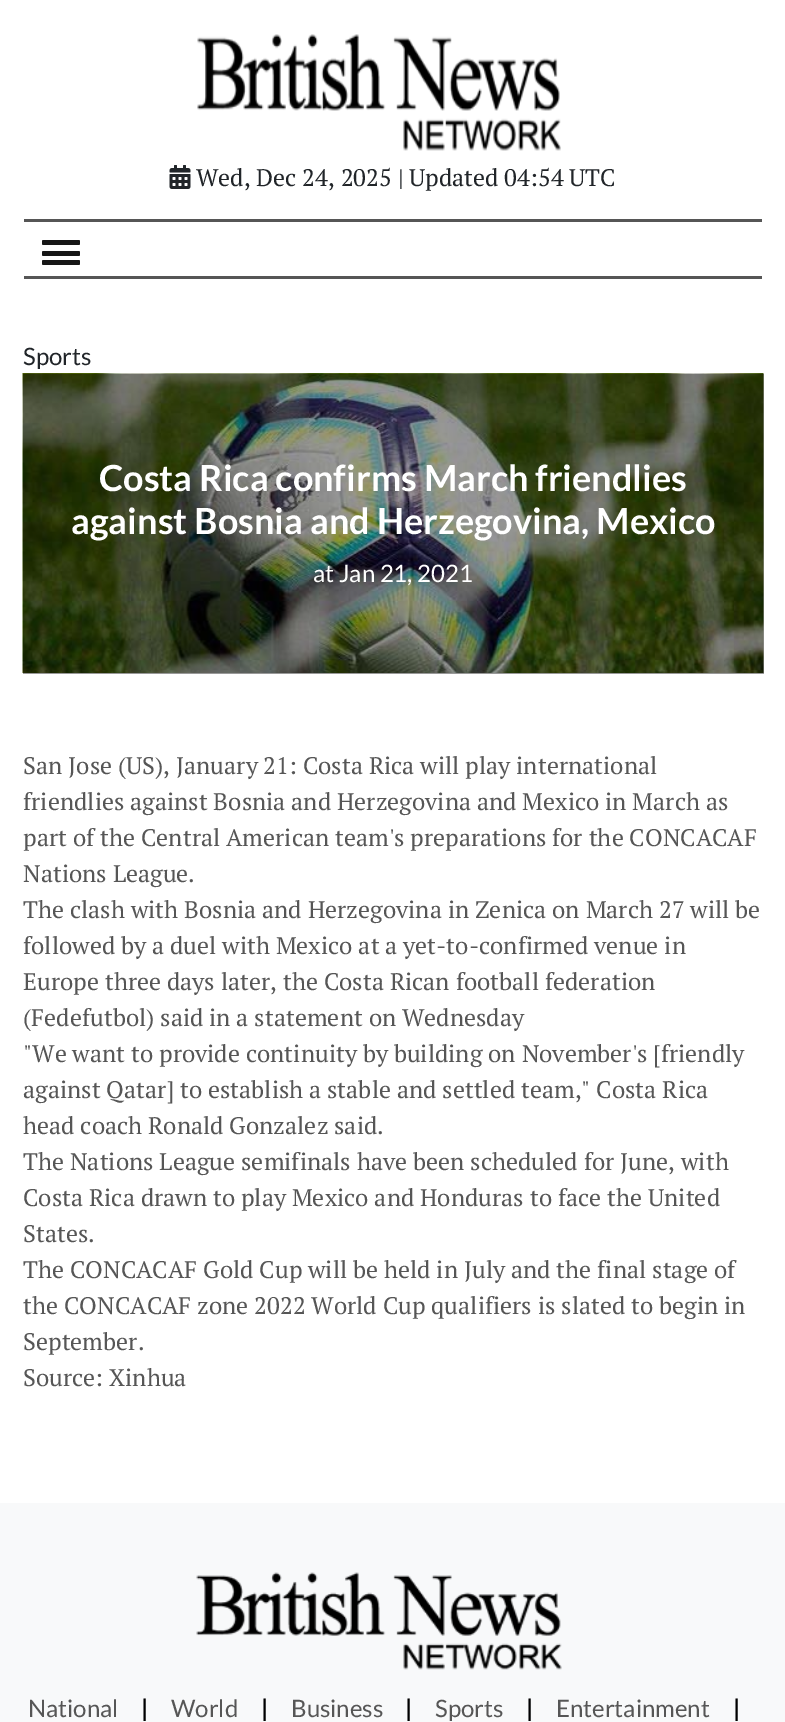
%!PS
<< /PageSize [785 1722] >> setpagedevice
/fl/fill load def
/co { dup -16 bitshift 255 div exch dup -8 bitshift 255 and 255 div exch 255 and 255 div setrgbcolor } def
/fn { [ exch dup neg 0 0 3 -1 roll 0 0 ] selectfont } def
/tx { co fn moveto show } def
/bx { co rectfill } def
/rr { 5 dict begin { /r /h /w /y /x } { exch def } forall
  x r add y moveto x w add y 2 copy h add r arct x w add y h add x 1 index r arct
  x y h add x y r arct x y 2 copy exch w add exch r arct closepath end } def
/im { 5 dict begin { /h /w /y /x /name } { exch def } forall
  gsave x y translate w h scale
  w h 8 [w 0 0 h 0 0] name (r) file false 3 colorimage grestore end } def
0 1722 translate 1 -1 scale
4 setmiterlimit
0 0 785 1722 16#FFFFFF bx
23 374 741 300 16#999999 bx
(media/1.raw) 197 34 364 117 im
(media/2.raw) 169 165 22 24 im
24 219 738 3 16#565656 bx
24 276 738 3 16#565656 bx
16#161616 co
42 240 38 5 1.5 rr fl
42 251 38 5 1.5 rr fl
42 260 38 5 1.5 rr fl
(media/3.raw) 22 373 742 300 im
0 1503 785 219 16#F8F9FA bx
(media/4.raw) 196 1572 366 98 im
(Wed, Dec 24, 2025 | Updated 04:54 UTC) 196 186 /PTSerif-Regular 24 16#212529 tx
(Sports) 23 365 /Lato-Regular 24 16#212529 tx
(Costa Rica confirms March friendlies) 99 491 /Lato-Bold 36 16#FFFFFF tx
(against Bosnia and Herzegovina, Mexico) 71 534 /Lato-Bold 36 16#FFFFFF tx
(at Jan 21, 2021) 313 582 /Lato-Regular 24 16#FFFFFF tx
(San Jose \(US\), January 21: Costa Rica will play international) 23 774 /PTSerif-Regular 24 16#565656 tx
(friendlies against Bosnia and Herzegovina and Mexico in March as) 23 810 /PTSerif-Regular 24 16#565656 tx
(part of the Central American team's preparations for the CONCACAF) 23 846 /PTSerif-Regular 24 16#565656 tx
(Nations League.) 23 882 /PTSerif-Regular 24 16#565656 tx
(The clash with Bosnia and Herzegovina in Zenica on March 27 will be) 23 918 /PTSerif-Regular 24 16#565656 tx
(followed by a duel with Mexico at a yet-to-confirmed venue in) 23 954 /PTSerif-Regular 24 16#565656 tx
(Europe three days later, the Costa Rican football federation) 23 990 /PTSerif-Regular 24 16#565656 tx
(\(Fedefutbol\) said in a statement on Wednesday) 23 1026 /PTSerif-Regular 24 16#565656 tx
("We want to provide continuity by building on November's [friendly) 23 1062 /PTSerif-Regular 24 16#565656 tx
(against Qatar] to establish a stable and settled team," Costa Rica) 23 1098 /PTSerif-Regular 24 16#565656 tx
(head coach Ronald Gonzalez said.) 23 1134 /PTSerif-Regular 24 16#565656 tx
(The Nations League semifinals have been scheduled for June, with) 23 1170 /PTSerif-Regular 24 16#565656 tx
(Costa Rica drawn to play Mexico and Honduras to face the United) 23 1206 /PTSerif-Regular 24 16#565656 tx
(States.) 23 1242 /PTSerif-Regular 24 16#565656 tx
(The CONCACAF Gold Cup will be held in July and the final stage of) 23 1278 /PTSerif-Regular 24 16#565656 tx
(the CONCACAF zone 2022 World Cup qualifiers is slated to begin in) 23 1314 /PTSerif-Regular 24 16#565656 tx
(September.) 23 1350 /PTSerif-Regular 24 16#565656 tx
(Source: Xinhua) 23 1386 /PTSerif-Regular 24 16#565656 tx
(National) 28 1717 /Lato-Regular 24 16#565656 tx
(|) 141 1717 /Lato-Bold 24 16#000000 tx
(World) 171 1717 /Lato-Regular 24 16#565656 tx
(|) 261 1717 /Lato-Bold 24 16#000000 tx
(Business) 291 1717 /Lato-Regular 24 16#565656 tx
(|) 405 1717 /Lato-Bold 24 16#000000 tx
(Sports) 435 1717 /Lato-Regular 24 16#565656 tx
(|) 526 1717 /Lato-Bold 24 16#000000 tx
(Entertainment) 556 1717 /Lato-Regular 24 16#565656 tx
(|) 733 1717 /Lato-Bold 24 16#000000 tx
showpage
